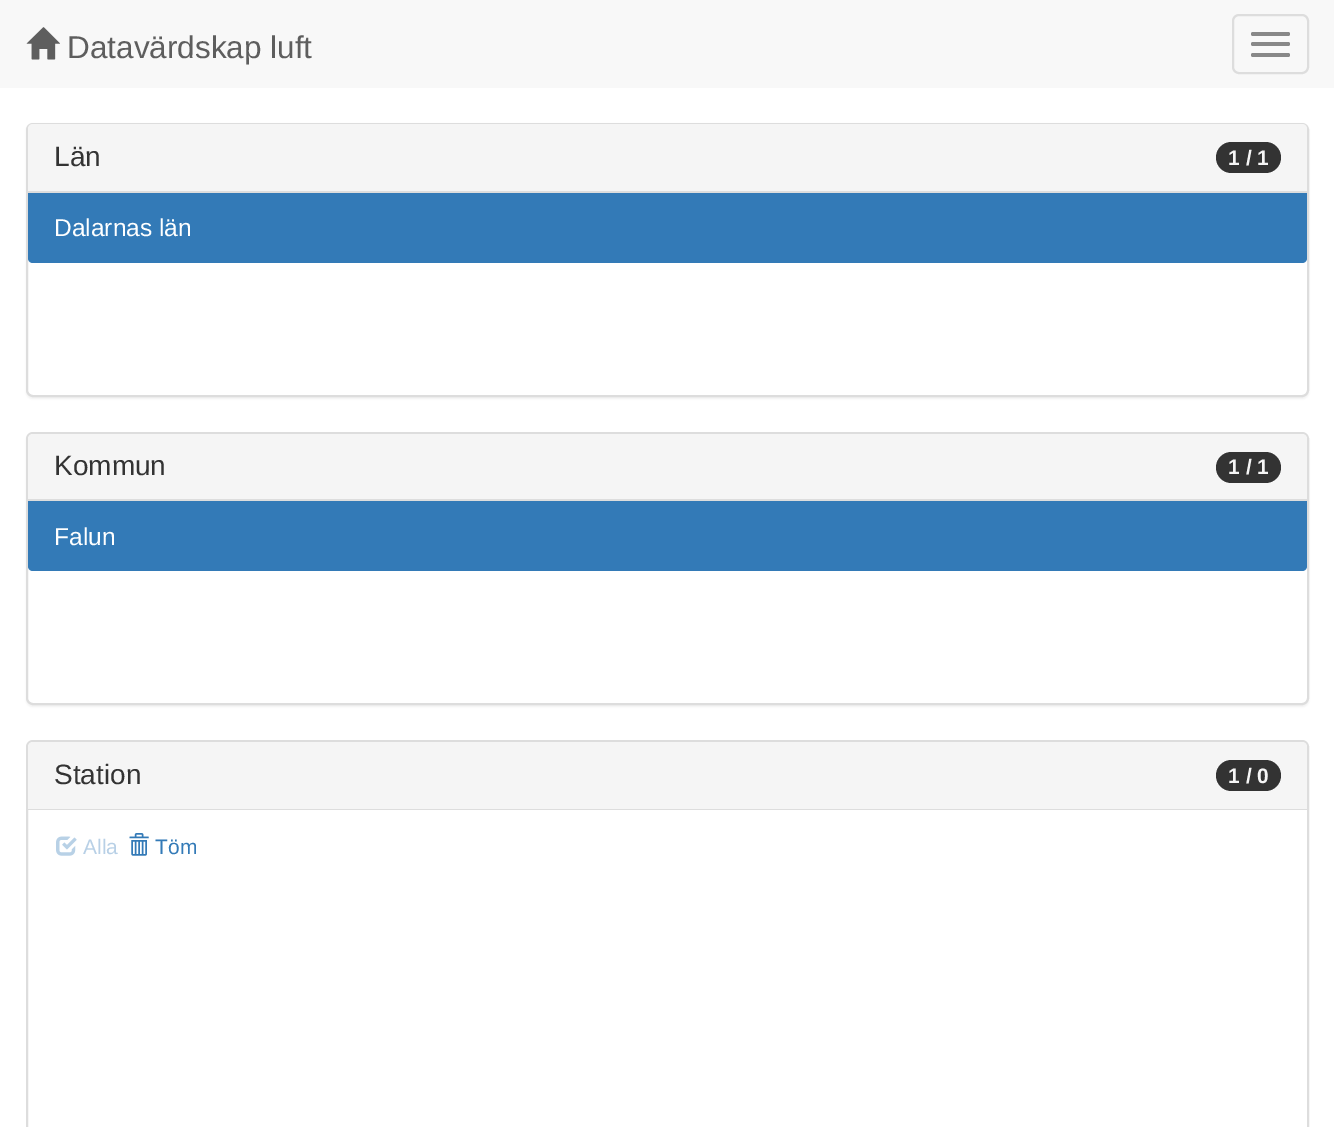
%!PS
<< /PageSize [1334 1127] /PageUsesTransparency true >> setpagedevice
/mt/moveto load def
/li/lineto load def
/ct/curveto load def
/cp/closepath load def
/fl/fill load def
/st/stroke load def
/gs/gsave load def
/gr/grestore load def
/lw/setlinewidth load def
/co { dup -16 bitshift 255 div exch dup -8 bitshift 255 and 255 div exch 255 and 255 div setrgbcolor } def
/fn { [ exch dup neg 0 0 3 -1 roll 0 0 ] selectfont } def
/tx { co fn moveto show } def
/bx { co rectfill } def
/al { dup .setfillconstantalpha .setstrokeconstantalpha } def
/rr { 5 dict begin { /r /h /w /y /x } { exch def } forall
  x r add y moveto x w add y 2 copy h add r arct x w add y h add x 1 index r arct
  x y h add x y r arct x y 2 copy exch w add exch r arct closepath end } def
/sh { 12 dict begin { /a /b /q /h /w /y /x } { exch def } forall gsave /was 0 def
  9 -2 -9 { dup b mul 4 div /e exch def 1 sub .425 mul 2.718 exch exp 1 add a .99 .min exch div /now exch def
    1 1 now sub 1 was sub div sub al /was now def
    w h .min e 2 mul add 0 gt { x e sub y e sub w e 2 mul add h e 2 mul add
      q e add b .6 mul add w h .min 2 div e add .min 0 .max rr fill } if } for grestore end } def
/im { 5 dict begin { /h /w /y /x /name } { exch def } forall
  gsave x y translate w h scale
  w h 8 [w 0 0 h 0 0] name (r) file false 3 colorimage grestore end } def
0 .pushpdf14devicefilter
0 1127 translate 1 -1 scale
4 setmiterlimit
0 0 1334 1127 16#FFFFFF bx
0 0 1334 88 16#F8F8F8 bx
(media/1.raw) 26 27 34 33 im
16#DDDDDD co
2 lw
1233 15 75 58 6 rr st
16#888888 co
1251 32 39 4 2 rr fl
1251 42 39 4 2 rr fl
1251 53 39 4 2 rr fl
16#000000 co
26 124 1283 275 7 1 .05 sh
16#FFFFFF co
27 124 1281 272 6 rr gs fl gr
16#DDDDDD co
st
16#F5F5F5 co
33 124 mt 1302 124 li 1305 124 1307 126 1307 129 ct 1307 193 li 28 193 li 28 129 li 28 126 30 124 33 124 ct cp fl
28 191 1279 2 16#DDDDDD bx
16#333333 co
1216 142 65 31 15.5 rr fl
16#337AB7 co
28 193 mt 1307 193 li 1307 258 li 1307 261 1305 263 1302 263 ct 33 263 li 30 263 28 261 28 258 ct cp fl
16#000000 co
26 434 1283 273 7 1 .05 sh
16#FFFFFF co
27 433 1281 271 6 rr gs fl gr
16#DDDDDD co
st
16#F5F5F5 co
33 434 mt 1302 434 li 1305 434 1307 436 1307 439 ct 1307 501 li 28 501 li 28 439 li 28 436 30 434 33 434 ct cp fl
28 499 1279 2 16#DDDDDD bx
16#333333 co
1216 452 65 31 15.5 rr fl
16#337AB7 co
28 501 mt 1307 501 li 1307 566 li 1307 569 1305 571 1302 571 ct 33 571 li 30 571 28 569 28 566 ct cp fl
16#DDDDDD co
27 741 1281 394 6 rr st
16#F5F5F5 co
33 742 mt 1302 742 li 1305 742 1307 744 1307 747 ct 1307 810 li 28 810 li 28 747 li 28 744 30 742 33 742 ct cp fl
28 809 1279 1 16#DDDDDD bx
16#333333 co
1216 760 65 31 15.5 rr fl
(media/2.raw) 56 836 21 20 im
(media/3.raw) 129 833 20 23 im
(Datavärdskap luft) 67 58 /LiberationSans-Regular 31.5 16#5E5E5E tx
(Län) 54 166 /LiberationSans-Regular 28 16#333333 tx
(1 / 1) 1228 165 /LiberationSans-Bold 21 16#F5F5F5 tx
(Dalarnas län) 54 236 /LiberationSans-Regular 24.5 16#FFFFFF tx
(Kommun) 54 475 /LiberationSans-Regular 28 16#333333 tx
(1 / 1) 1228 474 /LiberationSans-Bold 21 16#F5F5F5 tx
(Falun) 54 545 /LiberationSans-Regular 24.5 16#FFFFFF tx
(Station) 54 784 /LiberationSans-Regular 28 16#333333 tx
(1 / 0) 1228 783 /LiberationSans-Bold 21 16#F5F5F5 tx
(Alla) 83 854 /LiberationSans-Regular 21 16#B8D0E6 tx
(Töm) 155 854 /LiberationSans-Regular 21 16#337AB7 tx
.poppdf14devicefilter showpage
